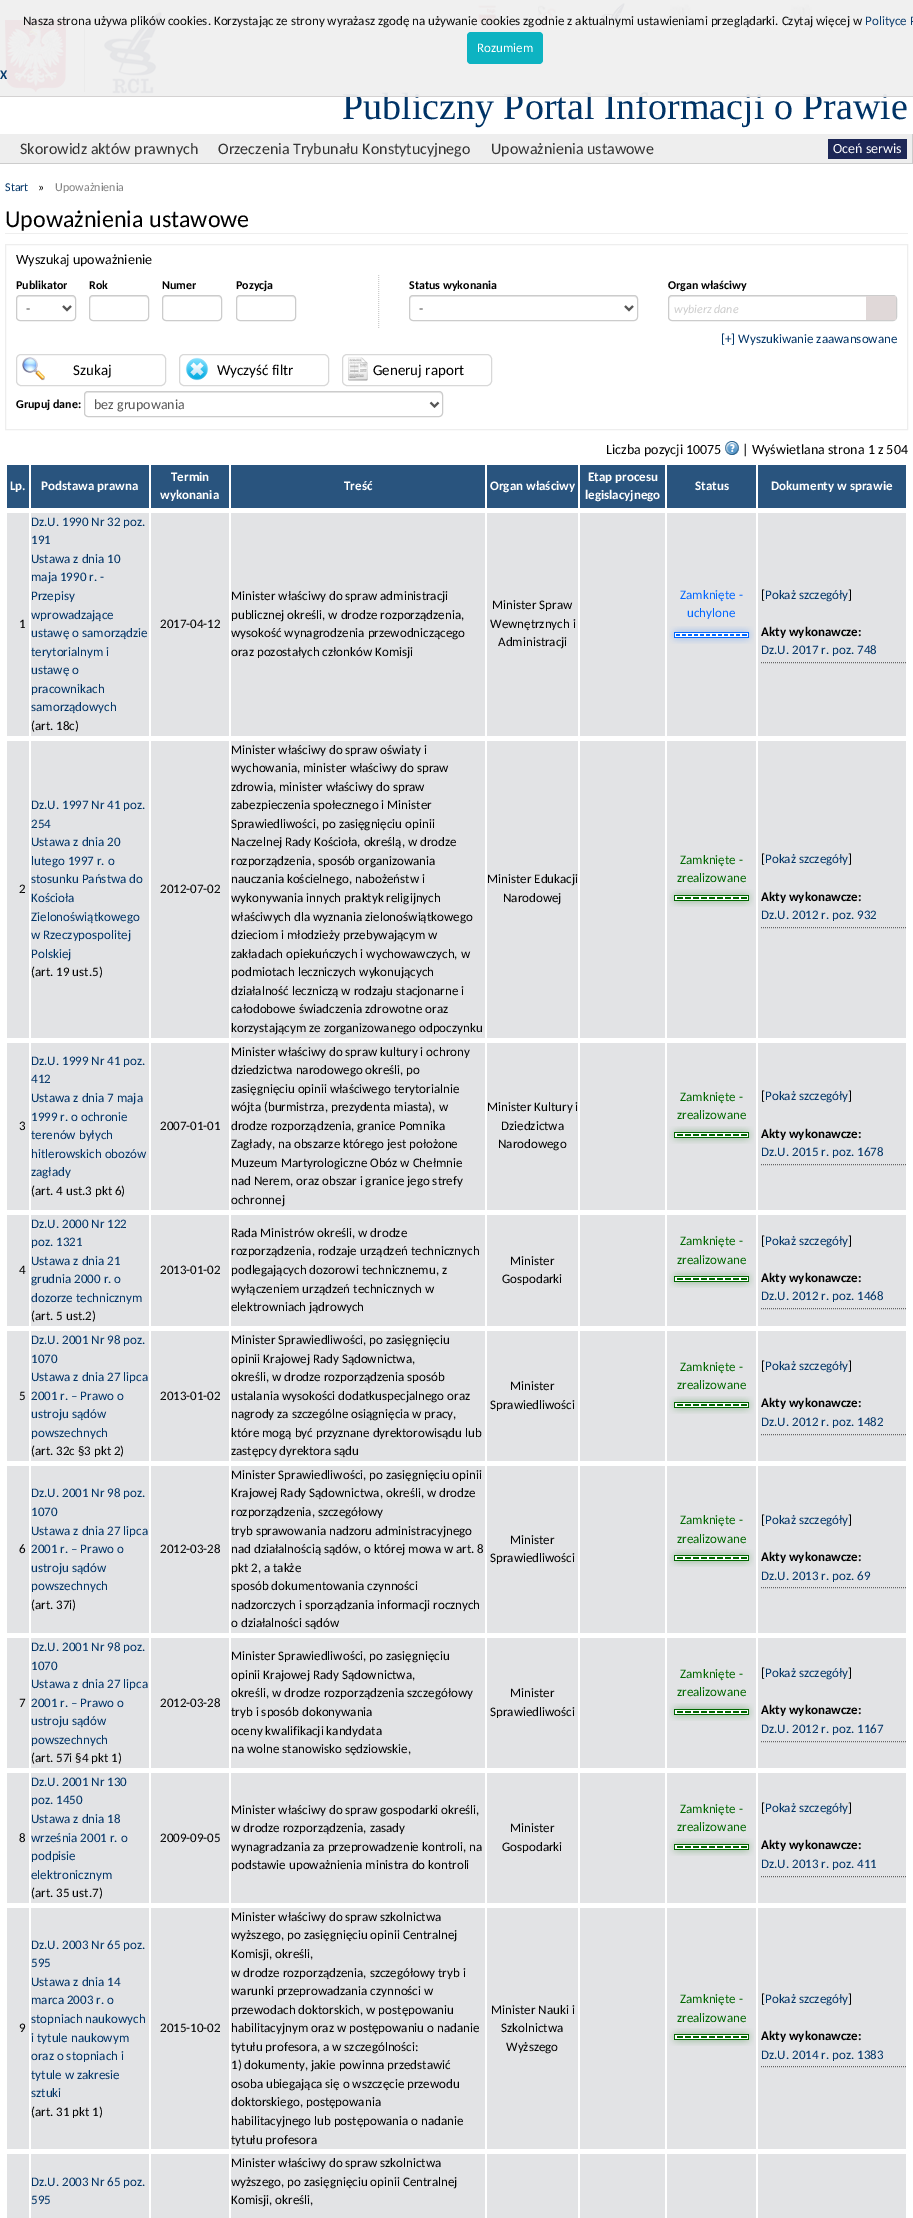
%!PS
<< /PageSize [913 2218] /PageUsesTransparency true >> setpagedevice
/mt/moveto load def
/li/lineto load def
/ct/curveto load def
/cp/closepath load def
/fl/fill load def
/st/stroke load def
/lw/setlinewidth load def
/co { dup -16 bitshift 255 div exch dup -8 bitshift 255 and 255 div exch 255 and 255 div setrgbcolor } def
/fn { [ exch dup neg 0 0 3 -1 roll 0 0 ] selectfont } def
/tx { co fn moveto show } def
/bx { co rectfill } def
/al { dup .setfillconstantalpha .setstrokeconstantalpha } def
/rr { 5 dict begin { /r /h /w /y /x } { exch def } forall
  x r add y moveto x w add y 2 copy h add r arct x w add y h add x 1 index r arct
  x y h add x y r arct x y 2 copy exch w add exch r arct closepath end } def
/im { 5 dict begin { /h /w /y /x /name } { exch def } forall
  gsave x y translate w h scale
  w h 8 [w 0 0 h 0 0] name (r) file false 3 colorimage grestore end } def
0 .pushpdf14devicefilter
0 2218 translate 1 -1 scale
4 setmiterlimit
0 0 913 2218 16#FFFFFF bx
84 20 1 72 16#9F9F9F bx
(media/1.raw) 5 20 61 72 im
(media/2.raw) 104 12 58 82 im
(media/3.raw) 478 5 19 21 im
(media/4.raw) 538 5 20 22 im
(media/5.raw) 601 3 24 26 im
(media/6.raw) 670 4 21 25 im
(media/7.raw) 791 4 21 25 im
0 134 912 29 16#EEEEEE bx
912 134 1 30 16#CCCCCC bx
0 163 913 1 16#CCCCCC bx
828 139 79 20 16#1D2756 bx
5 233 903 1 16#EEEEEE bx
5.5 244.5 902 185 rectstroke
16#ECECEC co
20 297 mt 72 297 li 74 297 75 298 75 300 ct 75 294 68 296 63 296 ct 29 296 li 24 296 17 294 17 300 ct 17 298 18 297 20 297 ct cp fl
16#CCCCCC co
16.5 295.5 59 25 3.5 rr st
16#555555 co
2 lw
63 306 mt 67 310 li 71 306 li st
16#ECECEC co
93 297 mt 145 297 li 147 297 148 298 148 300 ct 148 294 141 296 136 296 ct 102 296 li 97 296 90 294 90 300 ct 90 298 91 297 93 297 ct cp fl
16#CCCCCC co
1 lw
89.5 295.5 59 25 3.5 rr st
16#ECECEC co
166 297 mt 218 297 li 220 297 221 298 221 300 ct 221 294 214 296 209 296 ct 175 296 li 170 296 163 294 163 300 ct 163 298 164 297 166 297 ct cp fl
16#CCCCCC co
162.5 295.5 59 25 3.5 rr st
16#ECECEC co
240 297 mt 292 297 li 294 297 295 298 295 300 ct 295 294 288 296 283 296 ct 249 296 li 244 296 237 294 237 300 ct 237 298 238 297 240 297 ct cp fl
16#CCCCCC co
236.5 295.5 59 25 3.5 rr st
[1 1] 0 setdash
378.5 275 mt 378.5 329 li st
16#ECECEC co
413 297 mt 634 297 li 636 297 637 298 637 300 ct 637 299 li 637 297 636 296 634 296 ct 413 296 li 411 296 410 297 410 299 ct 410 300 li 410 298 411 297 413 297 ct cp fl
16#CCCCCC co
[] 0 setdash
409.5 295.5 228 25 3.5 rr st
16#555555 co
2 lw
625 306 mt 629 310 li 633 306 li st
16#ECECEC co
672 297 mt 893 297 li 895 297 896 298 896 300 ct 896 299 li 896 297 895 296 893 296 ct 672 296 li 670 296 669 297 669 299 ct 669 300 li 669 298 670 297 672 297 ct cp fl
16#CCCCCC co
1 lw
668.5 295.5 228 25 3.5 rr st
866 296 30 24 16#E0D8D8 bx
(media/8.raw) 22 357 23 24 im
16#D8D8D8 co
16.5 354.5 149 31 4.5 rr st
(media/9.raw) 185 357 24 24 im
179.5 354.5 149 31 4.5 rr st
(media/10.raw) 348 357 20 24 im
342.5 354.5 149 31 4.5 rr st
16#ECECEC co
88 393 mt 439 393 li 441 393 442 394 442 396 ct 442 394 441 392 439 392 ct 88 392 li 86 393 li 85 396 li 85 394 86 393 88 393 ct cp fl
16#CCCCCC co
84.5 391.5 358 25 3.5 rr st
16#555555 co
2 lw
430.5 402.5 mt 434.5 406.5 li 438.5 402.5 li st
(media/11.raw) 725 441 14 14 im
7 465 22 43 16#29547E bx
31 465 118 43 16#29547E bx
151 465 78 43 16#29547E bx
231 465 254 43 16#29547E bx
487 465 91 43 16#29547E bx
580 465 85 43 16#29547E bx
667 465 89 43 16#29547E bx
758 465 148 43 16#29547E bx
7 513 22 223 16#E2E3E5 bx
31 513 118 223 16#E2E3E5 bx
151 513 78 223 16#E2E3E5 bx
231 513 254 223 16#E2E3E5 bx
487 513 91 223 16#E2E3E5 bx
580 513 85 223 16#E2E3E5 bx
667 513 89 223 16#E2E3E5 bx
(media/12.raw) 669 626 85 18 im
758 513 148 223 16#E2E3E5 bx
16#666666 co
1 lw
[1 1] 0 setdash
761 662.5 mt 906 662.5 li st
31 741 118 297 16#E2E3E5 bx
231 741 254 297 16#E2E3E5 bx
580 741 85 297 16#E2E3E5 bx
667 741 89 297 16#E2E3E5 bx
(media/13.raw) 669 889 85 18 im
758 741 148 297 16#E2E3E5 bx
16#666666 co
761 927.5 mt 906 927.5 li st
7 741 22 297 16#E2E3E5 bx
151 741 78 297 16#E2E3E5 bx
487 741 91 297 16#E2E3E5 bx
7 1043 22 167 16#E2E3E5 bx
31 1043 118 167 16#E2E3E5 bx
151 1043 78 167 16#E2E3E5 bx
231 1043 254 167 16#E2E3E5 bx
487 1043 91 167 16#E2E3E5 bx
580 1043 85 167 16#E2E3E5 bx
667 1043 89 167 16#E2E3E5 bx
(media/13.raw) 669 1126 85 18 im
758 1043 148 167 16#E2E3E5 bx
16#666666 co
761 1164.5 mt 906 1164.5 li st
31 1215 118 111 16#E2E3E5 bx
231 1215 254 111 16#E2E3E5 bx
580 1215 85 111 16#E2E3E5 bx
667 1215 89 111 16#E2E3E5 bx
(media/13.raw) 669 1270 85 18 im
758 1215 148 111 16#E2E3E5 bx
16#666666 co
761 1308.5 mt 906 1308.5 li st
7 1215 22 111 16#E2E3E5 bx
151 1215 78 111 16#E2E3E5 bx
487 1215 91 111 16#E2E3E5 bx
31 1331 118 130 16#E2E3E5 bx
231 1331 254 130 16#E2E3E5 bx
580 1331 85 130 16#E2E3E5 bx
667 1331 89 130 16#E2E3E5 bx
(media/13.raw) 669 1396 85 18 im
758 1331 148 130 16#E2E3E5 bx
16#666666 co
761 1434.5 mt 906 1434.5 li st
7 1331 22 130 16#E2E3E5 bx
151 1331 78 130 16#E2E3E5 bx
487 1331 91 130 16#E2E3E5 bx
31 1466 118 167 16#E2E3E5 bx
231 1466 254 167 16#E2E3E5 bx
580 1466 85 167 16#E2E3E5 bx
667 1466 89 167 16#E2E3E5 bx
(media/13.raw) 669 1549 85 18 im
758 1466 148 167 16#E2E3E5 bx
16#666666 co
761 1587.5 mt 906 1587.5 li st
7 1466 22 167 16#E2E3E5 bx
151 1466 78 167 16#E2E3E5 bx
487 1466 91 167 16#E2E3E5 bx
31 1638 118 130 16#E2E3E5 bx
231 1638 254 130 16#E2E3E5 bx
580 1638 85 130 16#E2E3E5 bx
667 1638 89 130 16#E2E3E5 bx
(media/13.raw) 669 1703 85 18 im
758 1638 148 130 16#E2E3E5 bx
16#666666 co
761 1741.5 mt 906 1741.5 li st
7 1638 22 130 16#E2E3E5 bx
151 1638 78 130 16#E2E3E5 bx
487 1638 91 130 16#E2E3E5 bx
7 1773 22 130 16#E2E3E5 bx
31 1773 118 130 16#E2E3E5 bx
151 1773 78 130 16#E2E3E5 bx
231 1773 254 130 16#E2E3E5 bx
487 1773 91 130 16#E2E3E5 bx
580 1773 85 130 16#E2E3E5 bx
667 1773 89 130 16#E2E3E5 bx
(media/13.raw) 669 1838 85 18 im
758 1773 148 130 16#E2E3E5 bx
16#666666 co
761 1876.5 mt 906 1876.5 li st
7 1908 22 241 16#E2E3E5 bx
31 1908 118 241 16#E2E3E5 bx
151 1908 78 241 16#E2E3E5 bx
231 1908 254 241 16#E2E3E5 bx
487 1908 91 241 16#E2E3E5 bx
580 1908 85 241 16#E2E3E5 bx
667 1908 89 241 16#E2E3E5 bx
(media/13.raw) 669 2028 85 18 im
758 1908 148 241 16#E2E3E5 bx
16#666666 co
761 2066.5 mt 906 2066.5 li st
7 2154 22 64 16#E2E3E5 bx
31 2154 118 64 16#E2E3E5 bx
151 2154 78 64 16#E2E3E5 bx
231 2154 254 64 16#E2E3E5 bx
487 2154 91 64 16#E2E3E5 bx
580 2154 85 64 16#E2E3E5 bx
667 2154 89 64 16#E2E3E5 bx
758 2154 148 64 16#E2E3E5 bx
(Publiczny Portal Informacji o Prawie) 342 119 /LiberationSerif-Regular 38 16#003366 tx
0.95 al
0 0 913 97 16#EFEFEF bx
1 al
(X) 0 79 /Carlito-Bold 13 16#0C3C6D tx
16#0DB3C2 co
467 32 76 32 4 rr fl
(Rozumiem) 477 52 /Carlito-Regular 13 16#FFFFFF tx
(Polityce P) 865 25 /Carlito-Regular 13 16#0C3C6D tx
(Nasza strona używa plików cookies. Korzystając ze strony wyrażasz zgodę na używanie cookies zgodnie z aktualnymi ustawieniami przeglądarki. Czytaj więcej w) 23 25 /Carlito-Regular 13 16#0C0C0C tx
0.95 al
0 96 913 1 16#D3D0D0 bx
1 al
(Skorowidz aktów prawnych) 20 154 /Carlito-Regular 16 16#333333 tx
(Orzeczenia Trybunału Konstytucyjnego) 218 154 /Carlito-Regular 16 16#333333 tx
(Upoważnienia ustawowe) 491 154 /Carlito-Regular 16 16#333333 tx
(Oceń serwis) 833 153 /Carlito-Regular 14 16#FFFFFF tx
(Start) 5 191 /Carlito-Regular 12 16#003366 tx
(») 38 191 /Carlito-Regular 12 16#000000 tx
(Upoważnienia) 55 191 /Carlito-Regular 12 16#828282 tx
(Upoważnienia ustawowe) 5 227 /Carlito-Regular 24 16#000000 tx
(Wyszukaj upoważnienie) 16 264 /Carlito-Regular 14 16#000000 tx
(Publikator) 16 289 /Carlito-Bold 12 16#000000 tx
(-) 26 313 /Carlito-Regular 14 16#555555 tx
(Rok) 89 289 /Carlito-Bold 12 16#000000 tx
(Numer) 162 289 /Carlito-Bold 12 16#000000 tx
(Pozycja) 236 289 /Carlito-Bold 12 16#000000 tx
(Status wykonania) 409 289 /Carlito-Bold 12 16#000000 tx
(-) 419 313 /Carlito-Regular 14 16#555555 tx
(Organ właściwy) 668 289 /Carlito-Bold 12 16#000000 tx
(wybierz dane) 674 313 /Carlito-Italic 12 16#CCCCCC tx
([+] Wyszukiwanie zaawansowane) 721 343 /Carlito-Regular 13 16#003366 tx
(Szukaj) 73 375 /Carlito-Regular 15 16#000000 tx
(Wyczyść filtr) 217 375 /Carlito-Regular 15 16#000000 tx
(Generuj raport) 373 375 /Carlito-Regular 15 16#000000 tx
(Grupuj dane:) 16 408 /Carlito-Bold 12 16#000000 tx
(bez grupowania) 94 409 /Carlito-Regular 14 16#555555 tx
(Liczba pozycji 10075) 606 454 /Carlito-Regular 14 16#000000 tx
(| Wyświetlana strona 1 z 504) 742 454 /Carlito-Regular 14 16#000000 tx
(Lp.) 10 490 /Carlito-Bold 13 16#FFFFFF tx
(Podstawa prawna) 41 490 /Carlito-Bold 13 16#FFFFFF tx
(Termin) 171 481 /Carlito-Bold 13 16#FFFFFF tx
(wykonania) 160 499 /Carlito-Bold 13 16#FFFFFF tx
(Treść) 344 490 /Carlito-Bold 13 16#FFFFFF tx
(Organ właściwy) 490 490 /Carlito-Bold 13 16#FFFFFF tx
(Etap procesu) 588 481 /Carlito-Bold 13 16#FFFFFF tx
(legislacyjnego) 585 499 /Carlito-Bold 13 16#FFFFFF tx
(Status) 695 490 /Carlito-Bold 13 16#FFFFFF tx
(Dokumenty w sprawie) 771 490 /Carlito-Bold 13 16#FFFFFF tx
(1) 19 628 /Carlito-Regular 13 16#000000 tx
(Dz.U. 1990 Nr 32 poz.) 31 526 /Carlito-Regular 13 16#003366 tx
(191) 31 544 /Carlito-Regular 13 16#003366 tx
(Ustawa z dnia 10) 31 563 /Carlito-Regular 13 16#003366 tx
(maja 1990 r. -) 31 581 /Carlito-Regular 13 16#003366 tx
(Przepisy) 31 600 /Carlito-Regular 13 16#003366 tx
(wprowadzające) 31 619 /Carlito-Regular 13 16#003366 tx
(ustawę o samorządzie) 31 637 /Carlito-Regular 13 16#003366 tx
(terytorialnym i) 31 656 /Carlito-Regular 13 16#003366 tx
(ustawę o) 31 674 /Carlito-Regular 13 16#003366 tx
(pracownikach) 31 693 /Carlito-Regular 13 16#003366 tx
(samorządowych) 31 711 /Carlito-Regular 13 16#003366 tx
(\(art. 18c\)) 31 730 /Carlito-Regular 13 16#000000 tx
(2017-04-12) 160 628 /Carlito-Regular 13 16#000000 tx
(Minister właściwy do spraw administracji) 231 600 /Carlito-Regular 13 16#000000 tx
(publicznej określi, w drodze rozporządzenia,) 231 619 /Carlito-Regular 13 16#000000 tx
(wysokość wynagrodzenia przewodniczącego) 231 637 /Carlito-Regular 13 16#000000 tx
(oraz pozostałych członków Komisji) 231 656 /Carlito-Regular 13 16#000000 tx
(Minister Spraw) 492 609 /Carlito-Regular 13 16#000000 tx
(Wewnętrznych i) 490 628 /Carlito-Regular 13 16#000000 tx
(Administracji) 498 646 /Carlito-Regular 13 16#000000 tx
(Zamknięte -) 680 599 /Carlito-Regular 13 16#0066FF tx
(uchylone) 687 617 /Carlito-Regular 13 16#0066FF tx
([) 761 599 /Carlito-Regular 13 16#000000 tx
(Pokaż szczegóły) 765 599 /Carlito-Regular 13 16#003366 tx
(]) 848 599 /Carlito-Regular 13 16#000000 tx
(Akty wykonawcze:) 761 636 /Carlito-Bold 13 16#000000 tx
(Dz.U. 2017 r. poz. 748) 761 654 /Carlito-Regular 13 16#003366 tx
(Dz.U. 1997 Nr 41 poz.) 31 809 /Carlito-Regular 13 16#003366 tx
(254) 31 828 /Carlito-Regular 13 16#003366 tx
(Ustawa z dnia 20) 31 846 /Carlito-Regular 13 16#003366 tx
(lutego 1997 r. o) 31 865 /Carlito-Regular 13 16#003366 tx
(stosunku Państwa do) 31 883 /Carlito-Regular 13 16#003366 tx
(Kościoła) 31 902 /Carlito-Regular 13 16#003366 tx
(Zielonoświątkowego) 31 921 /Carlito-Regular 13 16#003366 tx
(w Rzeczypospolitej) 31 939 /Carlito-Regular 13 16#003366 tx
(Polskiej) 31 958 /Carlito-Regular 13 16#003366 tx
(\(art. 19 ust.5\)) 31 976 /Carlito-Regular 13 16#000000 tx
(Minister właściwy do spraw oświaty i) 231 754 /Carlito-Regular 13 16#000000 tx
(wychowania, minister właściwy do spraw) 231 772 /Carlito-Regular 13 16#000000 tx
(zdrowia, minister właściwy do spraw) 231 791 /Carlito-Regular 13 16#000000 tx
(zabezpieczenia społecznego i Minister) 231 809 /Carlito-Regular 13 16#000000 tx
(Sprawiedliwości, po zasięgnięciu opinii) 231 828 /Carlito-Regular 13 16#000000 tx
(Naczelnej Rady Kościoła, określą, w drodze) 231 846 /Carlito-Regular 13 16#000000 tx
(rozporządzenia, sposób organizowania) 231 865 /Carlito-Regular 13 16#000000 tx
(nauczania kościelnego, nabożeństw i) 231 883 /Carlito-Regular 13 16#000000 tx
(wykonywania innych praktyk religijnych) 231 902 /Carlito-Regular 13 16#000000 tx
(właściwych dla wyznania zielonoświątkowego) 231 921 /Carlito-Regular 13 16#000000 tx
(dzieciom i młodzieży przebywającym w) 231 939 /Carlito-Regular 13 16#000000 tx
(zakładach opiekuńczych i wychowawczych, w) 231 958 /Carlito-Regular 13 16#000000 tx
(podmiotach leczniczych wykonujących) 231 976 /Carlito-Regular 13 16#000000 tx
(działalność leczniczą w rodzaju stacjonarne i) 231 995 /Carlito-Regular 13 16#000000 tx
(całodobowe świadczenia zdrowotne oraz) 231 1013 /Carlito-Regular 13 16#000000 tx
(korzystającym ze zorganizowanego odpoczynku) 231 1032 /Carlito-Regular 13 16#000000 tx
(Zamknięte -) 680 864 /Carlito-Regular 13 16#006600 tx
(zrealizowane) 677 882 /Carlito-Regular 13 16#006600 tx
([) 761 863 /Carlito-Regular 13 16#000000 tx
(Pokaż szczegóły) 765 863 /Carlito-Regular 13 16#003366 tx
(]) 848 863 /Carlito-Regular 13 16#000000 tx
(Akty wykonawcze:) 761 901 /Carlito-Bold 13 16#000000 tx
(Dz.U. 2012 r. poz. 932) 761 919 /Carlito-Regular 13 16#003366 tx
(2) 19 893 /Carlito-Regular 13 16#000000 tx
(2012-07-02) 160 893 /Carlito-Regular 13 16#000000 tx
(Minister Edukacji) 487 883 /Carlito-Regular 13 16#000000 tx
(Narodowej) 503 902 /Carlito-Regular 13 16#000000 tx
(3) 19 1130 /Carlito-Regular 13 16#000000 tx
(Dz.U. 1999 Nr 41 poz.) 31 1065 /Carlito-Regular 13 16#003366 tx
(412) 31 1083 /Carlito-Regular 13 16#003366 tx
(Ustawa z dnia 7 maja) 31 1102 /Carlito-Regular 13 16#003366 tx
(1999 r. o ochronie) 31 1121 /Carlito-Regular 13 16#003366 tx
(terenów byłych) 31 1139 /Carlito-Regular 13 16#003366 tx
(hitlerowskich obozów) 31 1158 /Carlito-Regular 13 16#003366 tx
(zagłady) 31 1176 /Carlito-Regular 13 16#003366 tx
(\(art. 4 ust.3 pkt 6\)) 31 1195 /Carlito-Regular 13 16#000000 tx
(2007-01-01) 160 1130 /Carlito-Regular 13 16#000000 tx
(Minister właściwy do spraw kultury i ochrony) 231 1056 /Carlito-Regular 13 16#000000 tx
(dziedzictwa narodowego określi, po) 231 1074 /Carlito-Regular 13 16#000000 tx
(zasięgnięciu opinii właściwego terytorialnie) 231 1093 /Carlito-Regular 13 16#000000 tx
(wójta \(burmistrza, prezydenta miasta\), w) 231 1111 /Carlito-Regular 13 16#000000 tx
(drodze rozporządzenia, granice Pomnika) 231 1130 /Carlito-Regular 13 16#000000 tx
(Zagłady, na obszarze którego jest położone) 231 1148 /Carlito-Regular 13 16#000000 tx
(Muzeum Martyrologiczne Obóz w Chełmnie) 231 1167 /Carlito-Regular 13 16#000000 tx
(nad Nerem, oraz obszar i granice jego strefy) 231 1185 /Carlito-Regular 13 16#000000 tx
(ochronnej) 231 1204 /Carlito-Regular 13 16#000000 tx
(Minister Kultury i) 487 1111 /Carlito-Regular 13 16#000000 tx
(Dziedzictwa) 501 1130 /Carlito-Regular 13 16#000000 tx
(Narodowego) 498 1148 /Carlito-Regular 13 16#000000 tx
(Zamknięte -) 680 1101 /Carlito-Regular 13 16#006600 tx
(zrealizowane) 677 1119 /Carlito-Regular 13 16#006600 tx
([) 761 1100 /Carlito-Regular 13 16#000000 tx
(Pokaż szczegóły) 765 1100 /Carlito-Regular 13 16#003366 tx
(]) 848 1100 /Carlito-Regular 13 16#000000 tx
(Akty wykonawcze:) 761 1138 /Carlito-Bold 13 16#000000 tx
(Dz.U. 2015 r. poz. 1678) 761 1156 /Carlito-Regular 13 16#003366 tx
(Dz.U. 2000 Nr 122) 31 1228 /Carlito-Regular 13 16#003366 tx
(poz. 1321) 31 1246 /Carlito-Regular 13 16#003366 tx
(Ustawa z dnia 21) 31 1265 /Carlito-Regular 13 16#003366 tx
(grudnia 2000 r. o) 31 1283 /Carlito-Regular 13 16#003366 tx
(dozorze technicznym) 31 1302 /Carlito-Regular 13 16#003366 tx
(\(art. 5 ust.2\)) 31 1320 /Carlito-Regular 13 16#000000 tx
(Rada Ministrów określi, w drodze) 231 1237 /Carlito-Regular 13 16#000000 tx
(rozporządzenia, rodzaje urządzeń technicznych) 231 1255 /Carlito-Regular 13 16#000000 tx
(podlegających dozorowi technicznemu, z) 231 1274 /Carlito-Regular 13 16#000000 tx
(wyłączeniem urządzeń technicznych w) 231 1293 /Carlito-Regular 13 16#000000 tx
(elektrowniach jądrowych) 231 1311 /Carlito-Regular 13 16#000000 tx
(Zamknięte -) 680 1245 /Carlito-Regular 13 16#006600 tx
(zrealizowane) 677 1264 /Carlito-Regular 13 16#006600 tx
([) 761 1245 /Carlito-Regular 13 16#000000 tx
(Pokaż szczegóły) 765 1245 /Carlito-Regular 13 16#003366 tx
(]) 848 1245 /Carlito-Regular 13 16#000000 tx
(Akty wykonawcze:) 761 1282 /Carlito-Bold 13 16#000000 tx
(Dz.U. 2012 r. poz. 1468) 761 1300 /Carlito-Regular 13 16#003366 tx
(4) 19 1274 /Carlito-Regular 13 16#000000 tx
(2013-01-02) 160 1274 /Carlito-Regular 13 16#000000 tx
(Minister) 510 1265 /Carlito-Regular 13 16#000000 tx
(Gospodarki) 502 1283 /Carlito-Regular 13 16#000000 tx
(Dz.U. 2001 Nr 98 poz.) 31 1344 /Carlito-Regular 13 16#003366 tx
(1070) 31 1363 /Carlito-Regular 13 16#003366 tx
(Ustawa z dnia 27 lipca) 31 1381 /Carlito-Regular 13 16#003366 tx
(2001 r. – Prawo o) 31 1400 /Carlito-Regular 13 16#003366 tx
(ustroju sądów) 31 1418 /Carlito-Regular 13 16#003366 tx
(powszechnych) 31 1437 /Carlito-Regular 13 16#003366 tx
(\(art. 32c §3 pkt 2\)) 31 1455 /Carlito-Regular 13 16#000000 tx
(Minister Sprawiedliwości, po zasięgnięciu) 231 1344 /Carlito-Regular 13 16#000000 tx
(opinii Krajowej Rady Sądownictwa,) 231 1363 /Carlito-Regular 13 16#000000 tx
(określi, w drodze rozporządzenia sposób) 231 1381 /Carlito-Regular 13 16#000000 tx
(ustalania wysokości dodatkuspecjalnego oraz) 231 1400 /Carlito-Regular 13 16#000000 tx
(nagrody za szczególne osiągnięcia w pracy,) 231 1418 /Carlito-Regular 13 16#000000 tx
(które mogą być przyznane dyrektorowisądu lub) 231 1437 /Carlito-Regular 13 16#000000 tx
(zastępcy dyrektora sądu) 231 1455 /Carlito-Regular 13 16#000000 tx
(Zamknięte -) 680 1371 /Carlito-Regular 13 16#006600 tx
(zrealizowane) 677 1389 /Carlito-Regular 13 16#006600 tx
([) 761 1370 /Carlito-Regular 13 16#000000 tx
(Pokaż szczegóły) 765 1370 /Carlito-Regular 13 16#003366 tx
(]) 848 1370 /Carlito-Regular 13 16#000000 tx
(Akty wykonawcze:) 761 1407 /Carlito-Bold 13 16#000000 tx
(Dz.U. 2012 r. poz. 1482) 761 1426 /Carlito-Regular 13 16#003366 tx
(5) 19 1400 /Carlito-Regular 13 16#000000 tx
(2013-01-02) 160 1400 /Carlito-Regular 13 16#000000 tx
(Minister) 510 1390 /Carlito-Regular 13 16#000000 tx
(Sprawiedliwości) 490 1409 /Carlito-Regular 13 16#000000 tx
(Dz.U. 2001 Nr 98 poz.) 31 1497 /Carlito-Regular 13 16#003366 tx
(1070) 31 1516 /Carlito-Regular 13 16#003366 tx
(Ustawa z dnia 27 lipca) 31 1535 /Carlito-Regular 13 16#003366 tx
(2001 r. – Prawo o) 31 1553 /Carlito-Regular 13 16#003366 tx
(ustroju sądów) 31 1572 /Carlito-Regular 13 16#003366 tx
(powszechnych) 31 1590 /Carlito-Regular 13 16#003366 tx
(\(art. 37i\)) 31 1609 /Carlito-Regular 13 16#000000 tx
(Minister Sprawiedliwości, po zasięgnięciu opinii) 231 1479 /Carlito-Regular 13 16#000000 tx
(Krajowej Rady Sądownictwa, określi, w drodze) 231 1497 /Carlito-Regular 13 16#000000 tx
(rozporządzenia, szczegółowy) 231 1516 /Carlito-Regular 13 16#000000 tx
(tryb sprawowania nadzoru administracyjnego) 231 1535 /Carlito-Regular 13 16#000000 tx
(nad działalnością sądów, o której mowa w art. 8) 231 1553 /Carlito-Regular 13 16#000000 tx
(pkt 2, a także) 231 1572 /Carlito-Regular 13 16#000000 tx
(sposób dokumentowania czynności) 231 1590 /Carlito-Regular 13 16#000000 tx
(nadzorczych i sporządzania informacji rocznych) 231 1609 /Carlito-Regular 13 16#000000 tx
(o działalności sądów) 231 1627 /Carlito-Regular 13 16#000000 tx
(Zamknięte -) 680 1524 /Carlito-Regular 13 16#006600 tx
(zrealizowane) 677 1543 /Carlito-Regular 13 16#006600 tx
([) 761 1524 /Carlito-Regular 13 16#000000 tx
(Pokaż szczegóły) 765 1524 /Carlito-Regular 13 16#003366 tx
(]) 848 1524 /Carlito-Regular 13 16#000000 tx
(Akty wykonawcze:) 761 1561 /Carlito-Bold 13 16#000000 tx
(Dz.U. 2013 r. poz. 69) 761 1580 /Carlito-Regular 13 16#003366 tx
(6) 19 1553 /Carlito-Regular 13 16#000000 tx
(2012-03-28) 160 1553 /Carlito-Regular 13 16#000000 tx
(Minister) 510 1544 /Carlito-Regular 13 16#000000 tx
(Sprawiedliwości) 490 1562 /Carlito-Regular 13 16#000000 tx
(Dz.U. 2001 Nr 98 poz.) 31 1651 /Carlito-Regular 13 16#003366 tx
(1070) 31 1670 /Carlito-Regular 13 16#003366 tx
(Ustawa z dnia 27 lipca) 31 1688 /Carlito-Regular 13 16#003366 tx
(2001 r. – Prawo o) 31 1707 /Carlito-Regular 13 16#003366 tx
(ustroju sądów) 31 1725 /Carlito-Regular 13 16#003366 tx
(powszechnych) 31 1744 /Carlito-Regular 13 16#003366 tx
(\(art. 57i §4 pkt 1\)) 31 1762 /Carlito-Regular 13 16#000000 tx
(Minister Sprawiedliwości, po zasięgnięciu) 231 1660 /Carlito-Regular 13 16#000000 tx
(opinii Krajowej Rady Sądownictwa,) 231 1679 /Carlito-Regular 13 16#000000 tx
(określi, w drodze rozporządzenia szczegółowy) 231 1697 /Carlito-Regular 13 16#000000 tx
(tryb i sposób dokonywania) 231 1716 /Carlito-Regular 13 16#000000 tx
(oceny kwalifikacji kandydata) 231 1735 /Carlito-Regular 13 16#000000 tx
(na wolne stanowisko sędziowskie,) 231 1753 /Carlito-Regular 13 16#000000 tx
(Zamknięte -) 680 1678 /Carlito-Regular 13 16#006600 tx
(zrealizowane) 677 1696 /Carlito-Regular 13 16#006600 tx
([) 761 1677 /Carlito-Regular 13 16#000000 tx
(Pokaż szczegóły) 765 1677 /Carlito-Regular 13 16#003366 tx
(]) 848 1677 /Carlito-Regular 13 16#000000 tx
(Akty wykonawcze:) 761 1714 /Carlito-Bold 13 16#000000 tx
(Dz.U. 2012 r. poz. 1167) 761 1733 /Carlito-Regular 13 16#003366 tx
(7) 19 1707 /Carlito-Regular 13 16#000000 tx
(2012-03-28) 160 1707 /Carlito-Regular 13 16#000000 tx
(Minister) 510 1697 /Carlito-Regular 13 16#000000 tx
(Sprawiedliwości) 490 1716 /Carlito-Regular 13 16#000000 tx
(8) 19 1842 /Carlito-Regular 13 16#000000 tx
(Dz.U. 2001 Nr 130) 31 1786 /Carlito-Regular 13 16#003366 tx
(poz. 1450) 31 1804 /Carlito-Regular 13 16#003366 tx
(Ustawa z dnia 18) 31 1823 /Carlito-Regular 13 16#003366 tx
(września 2001 r. o) 31 1842 /Carlito-Regular 13 16#003366 tx
(podpisie) 31 1860 /Carlito-Regular 13 16#003366 tx
(elektronicznym) 31 1879 /Carlito-Regular 13 16#003366 tx
(\(art. 35 ust.7\)) 31 1897 /Carlito-Regular 13 16#000000 tx
(2009-09-05) 160 1842 /Carlito-Regular 13 16#000000 tx
(Minister właściwy do spraw gospodarki określi,) 231 1814 /Carlito-Regular 13 16#000000 tx
(w drodze rozporządzenia, zasady) 231 1832 /Carlito-Regular 13 16#000000 tx
(wynagradzania za przeprowadzenie kontroli, na) 231 1851 /Carlito-Regular 13 16#000000 tx
(podstawie upoważnienia ministra do kontroli) 231 1869 /Carlito-Regular 13 16#000000 tx
(Minister) 510 1832 /Carlito-Regular 13 16#000000 tx
(Gospodarki) 502 1851 /Carlito-Regular 13 16#000000 tx
(Zamknięte -) 680 1813 /Carlito-Regular 13 16#006600 tx
(zrealizowane) 677 1831 /Carlito-Regular 13 16#006600 tx
([) 761 1812 /Carlito-Regular 13 16#000000 tx
(Pokaż szczegóły) 765 1812 /Carlito-Regular 13 16#003366 tx
(]) 848 1812 /Carlito-Regular 13 16#000000 tx
(Akty wykonawcze:) 761 1849 /Carlito-Bold 13 16#000000 tx
(Dz.U. 2013 r. poz. 411) 761 1868 /Carlito-Regular 13 16#003366 tx
(9) 19 2032 /Carlito-Regular 13 16#000000 tx
(Dz.U. 2003 Nr 65 poz.) 31 1949 /Carlito-Regular 13 16#003366 tx
(595) 31 1967 /Carlito-Regular 13 16#003366 tx
(Ustawa z dnia 14) 31 1986 /Carlito-Regular 13 16#003366 tx
(marca 2003 r. o) 31 2004 /Carlito-Regular 13 16#003366 tx
(stopniach naukowych) 31 2023 /Carlito-Regular 13 16#003366 tx
(i tytule naukowym) 31 2042 /Carlito-Regular 13 16#003366 tx
(oraz o stopniach i) 31 2060 /Carlito-Regular 13 16#003366 tx
(tytule w zakresie) 31 2079 /Carlito-Regular 13 16#003366 tx
(sztuki) 31 2097 /Carlito-Regular 13 16#003366 tx
(\(art. 31 pkt 1\)) 31 2116 /Carlito-Regular 13 16#000000 tx
(2015-10-02) 160 2032 /Carlito-Regular 13 16#000000 tx
(Minister właściwy do spraw szkolnictwa) 231 1921 /Carlito-Regular 13 16#000000 tx
(wyższego, po zasięgnięciu opinii Centralnej) 231 1939 /Carlito-Regular 13 16#000000 tx
(Komisji, określi,) 231 1958 /Carlito-Regular 13 16#000000 tx
(w drodze rozporządzenia, szczegółowy tryb i) 231 1977 /Carlito-Regular 13 16#000000 tx
(warunki przeprowadzania czynności w) 231 1995 /Carlito-Regular 13 16#000000 tx
(przewodach doktorskich, w postępowaniu) 231 2014 /Carlito-Regular 13 16#000000 tx
(habilitacyjnym oraz w postępowaniu o nadanie) 231 2032 /Carlito-Regular 13 16#000000 tx
(tytułu profesora, a w szczególności:) 231 2051 /Carlito-Regular 13 16#000000 tx
(1\) dokumenty, jakie powinna przedstawić) 231 2069 /Carlito-Regular 13 16#000000 tx
(osoba ubiegająca się o wszczęcie przewodu) 231 2088 /Carlito-Regular 13 16#000000 tx
(doktorskiego, postępowania) 231 2106 /Carlito-Regular 13 16#000000 tx
(habilitacyjnego lub postępowania o nadanie) 231 2125 /Carlito-Regular 13 16#000000 tx
(tytułu profesora) 231 2144 /Carlito-Regular 13 16#000000 tx
(Minister Nauki i) 491 2014 /Carlito-Regular 13 16#000000 tx
(Szkolnictwa) 501 2032 /Carlito-Regular 13 16#000000 tx
(Wyższego) 506 2051 /Carlito-Regular 13 16#000000 tx
(Zamknięte -) 680 2003 /Carlito-Regular 13 16#006600 tx
(zrealizowane) 677 2022 /Carlito-Regular 13 16#006600 tx
([) 761 2003 /Carlito-Regular 13 16#000000 tx
(Pokaż szczegóły) 765 2003 /Carlito-Regular 13 16#003366 tx
(]) 848 2003 /Carlito-Regular 13 16#000000 tx
(Akty wykonawcze:) 761 2040 /Carlito-Bold 13 16#000000 tx
(Dz.U. 2014 r. poz. 1383) 761 2059 /Carlito-Regular 13 16#003366 tx
(Dz.U. 2003 Nr 65 poz.) 31 2186 /Carlito-Regular 13 16#003366 tx
(595) 31 2204 /Carlito-Regular 13 16#003366 tx
(Minister właściwy do spraw szkolnictwa) 231 2167 /Carlito-Regular 13 16#000000 tx
(wyższego, po zasięgnięciu opinii Centralnej) 231 2186 /Carlito-Regular 13 16#000000 tx
(Komisji, określi,) 231 2204 /Carlito-Regular 13 16#000000 tx
.poppdf14devicefilter showpage
